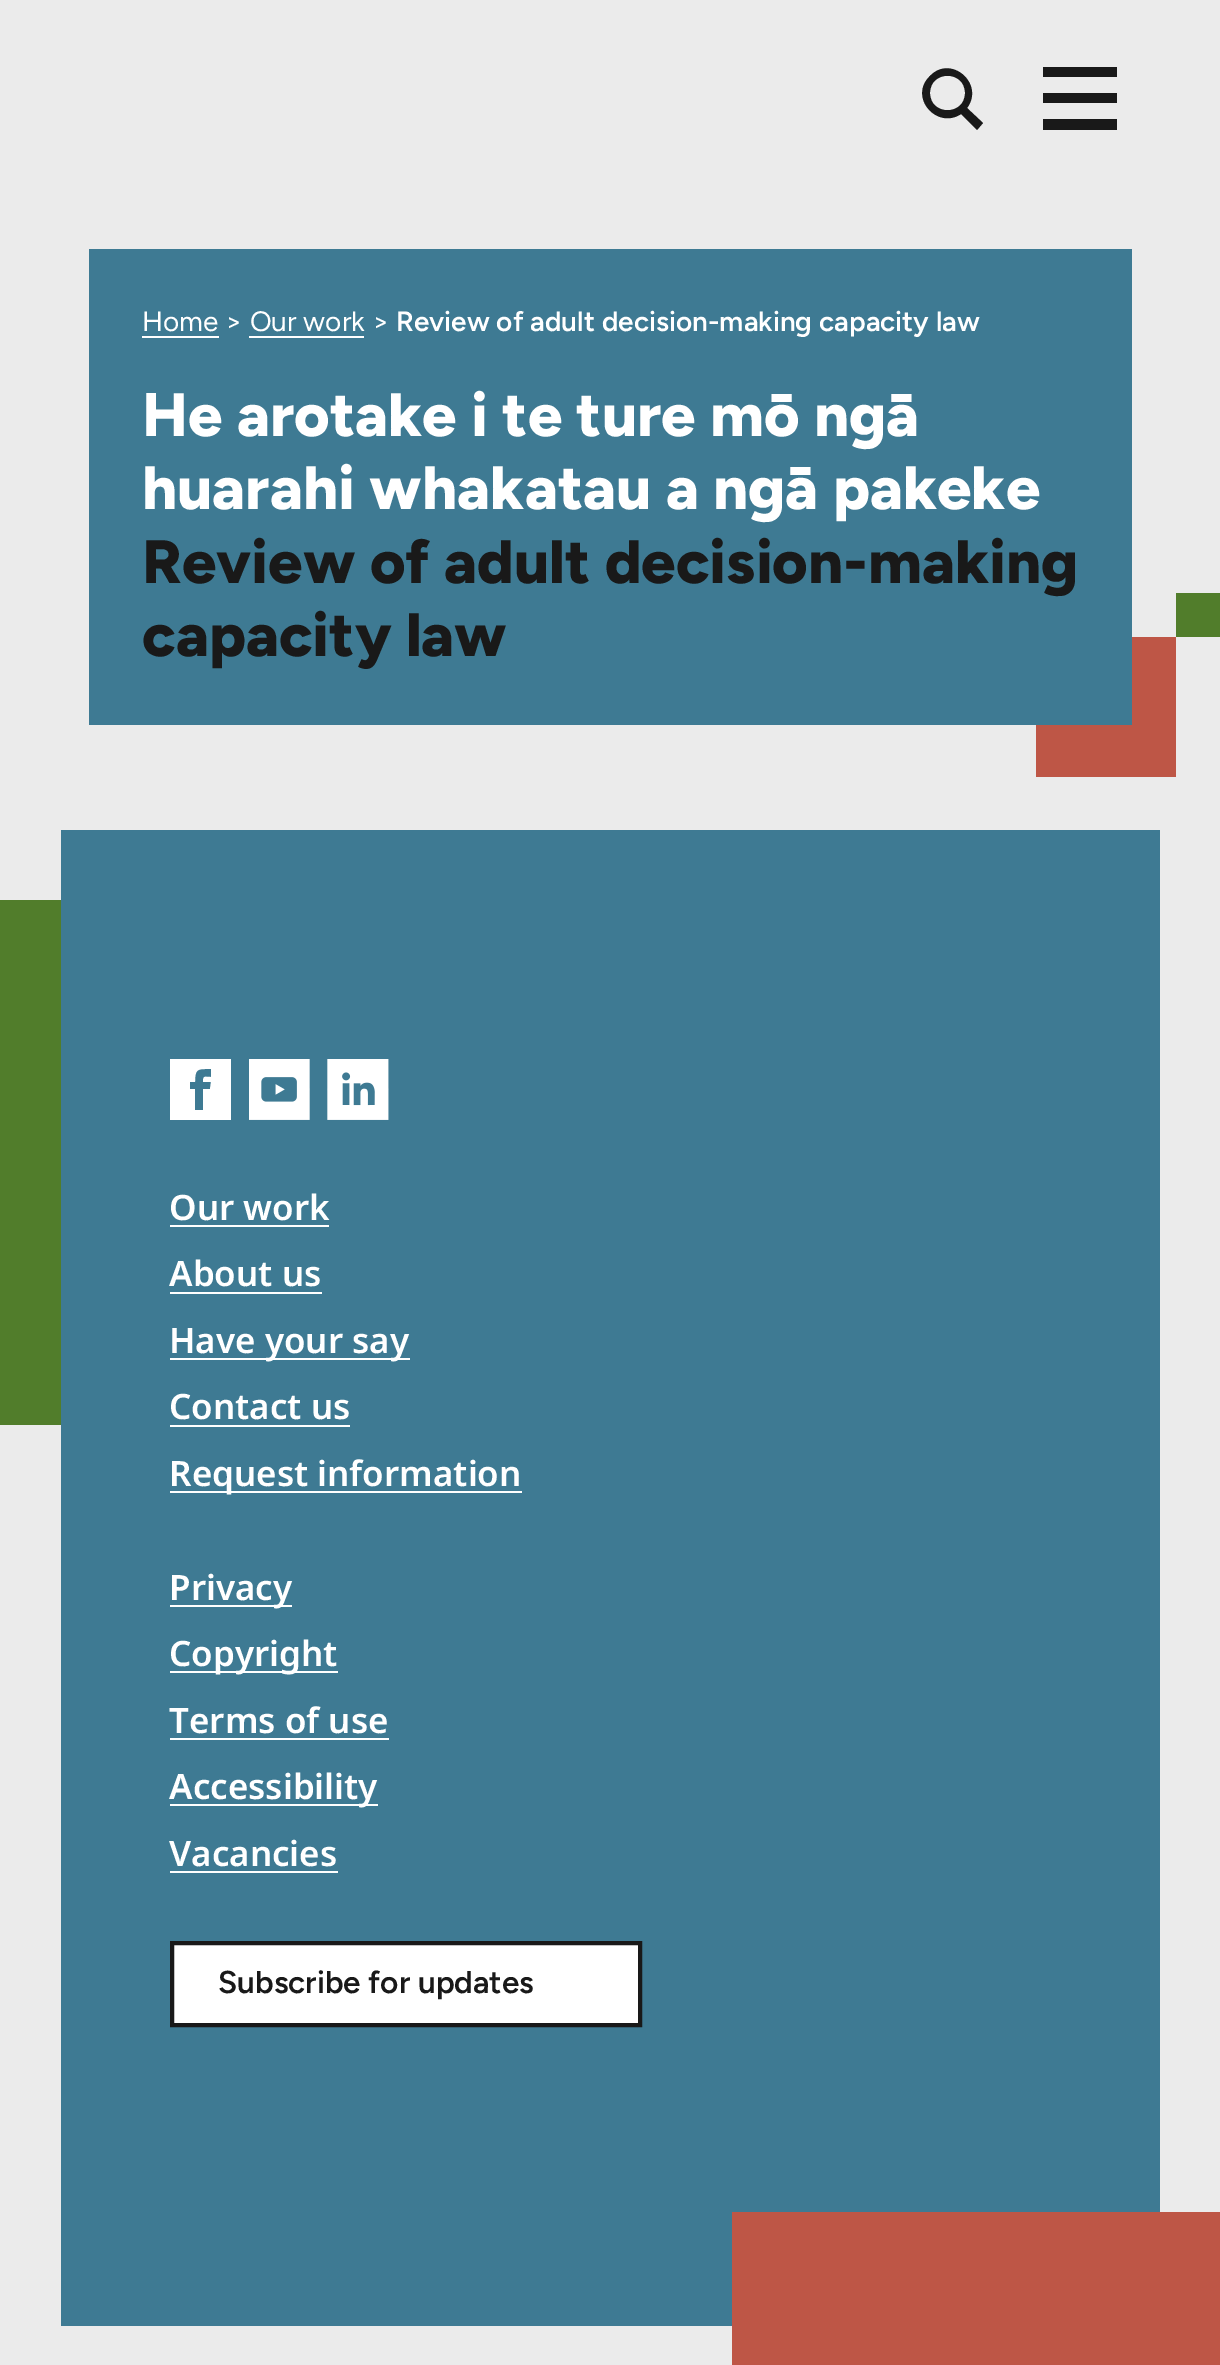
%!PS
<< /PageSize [1220 2365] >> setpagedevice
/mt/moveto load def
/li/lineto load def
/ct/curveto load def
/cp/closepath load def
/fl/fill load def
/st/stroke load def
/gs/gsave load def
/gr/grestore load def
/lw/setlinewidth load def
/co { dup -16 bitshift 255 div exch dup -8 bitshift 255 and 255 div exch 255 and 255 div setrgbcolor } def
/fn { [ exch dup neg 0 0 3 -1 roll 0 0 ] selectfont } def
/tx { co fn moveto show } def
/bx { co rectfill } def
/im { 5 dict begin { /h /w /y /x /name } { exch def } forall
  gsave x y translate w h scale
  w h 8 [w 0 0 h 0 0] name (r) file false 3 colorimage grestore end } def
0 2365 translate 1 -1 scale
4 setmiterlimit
0 0 1220 2365 16#EBEBEB bx
16#191919 co
983 123 mt 967 108 li 985 84 951 54 930 76 ct 908 97 937 130 961 114 ct 977 130 li cp 930 93 mt 930 70 965 70 965 93 ct 965 116 930 116 930 93 ct cp fl
1043 67 74 10 16#191919 bx
1043 93 74 10 16#191919 bx
1043 119 74 11 16#191919 bx
1036 637 140 140 16#BE5646 bx
89 249 1043 476 16#3E7A93 bx
142 336 77 2 16#FFFFFF bx
249 336 115 2 16#FFFFFF bx
1176 593 44 44 16#517D2B bx
0 900 61 525 16#517D2B bx
61 830 1099 1496 16#3E7A93 bx
16#FFFFFF co
170 1059 mt 170 1120 li 231 1120 li 231 1059 li cp 211 1077 mt 205 1077 203 1075 203 1082 ct 211 1082 li 210 1089 li 203 1089 li 203 1110 li 195 1110 li 195 1089 li 190 1089 li 190 1082 li 195 1082 li 195 1068 198 1069 211 1069 ct cp fl
(media/1.raw) 249 1059 61 61 im
(media/2.raw) 327 1059 62 61 im
170 1225 159 2 16#FFFFFF bx
170 1292 152 2 16#FFFFFF bx
170 1358 240 2 16#FFFFFF bx
170 1425 180 2 16#FFFFFF bx
170 1491 352 2 16#FFFFFF bx
170 1605 122 2 16#FFFFFF bx
170 1671 168 2 16#FFFFFF bx
170 1738 219 2 16#FFFFFF bx
170 1804 208 2 16#FFFFFF bx
170 1871 168 2 16#FFFFFF bx
172 1943 mt 640 1943 li 640 2025 li 172 2025 li cp gs fl gr
16#191919 co
4 lw
st
732 2212 488 153 16#BE5646 bx
(Home > Our work >) 142 331 /Figtree-Regular 28 16#FFFFFF tx
(Review of adult decision-making capacity law) 396 331 /Figtree-SemiBold 28 16#FFFFFF tx
(He arotake i te ture mō ngā) 142 436 /Figtree-ExtraBold 61.25 16#FFFFFF tx
(huarahi whakatau a ngā pakeke) 142 509 /Figtree-ExtraBold 61.25 16#FFFFFF tx
(Review of adult decision-making) 142 583 /Figtree-ExtraBold 61.25 16#191919 tx
(capacity law) 142 656 /Figtree-ExtraBold 61.25 16#191919 tx
(Our work) 169 1220 /NotoSans-SemiBold 35 16#FFFFFF tx
(About us) 169 1286 /NotoSans-SemiBold 35 16#FFFFFF tx
(Have your say) 169 1353 /NotoSans-SemiBold 35 16#FFFFFF tx
(Contact us) 169 1419 /NotoSans-SemiBold 35 16#FFFFFF tx
(Request information) 169 1486 /NotoSans-SemiBold 35 16#FFFFFF tx
(Privacy) 169 1600 /NotoSans-SemiBold 35 16#FFFFFF tx
(Copyright) 169 1666 /NotoSans-SemiBold 35 16#FFFFFF tx
(Terms of use) 169 1733 /NotoSans-SemiBold 35 16#FFFFFF tx
(Accessibility) 169 1799 /NotoSans-SemiBold 35 16#FFFFFF tx
(Vacancies) 169 1866 /NotoSans-SemiBold 35 16#FFFFFF tx
(Subscribe for updates) 218 1993 /Figtree-SemiBold 31.5 16#191919 tx
showpage
